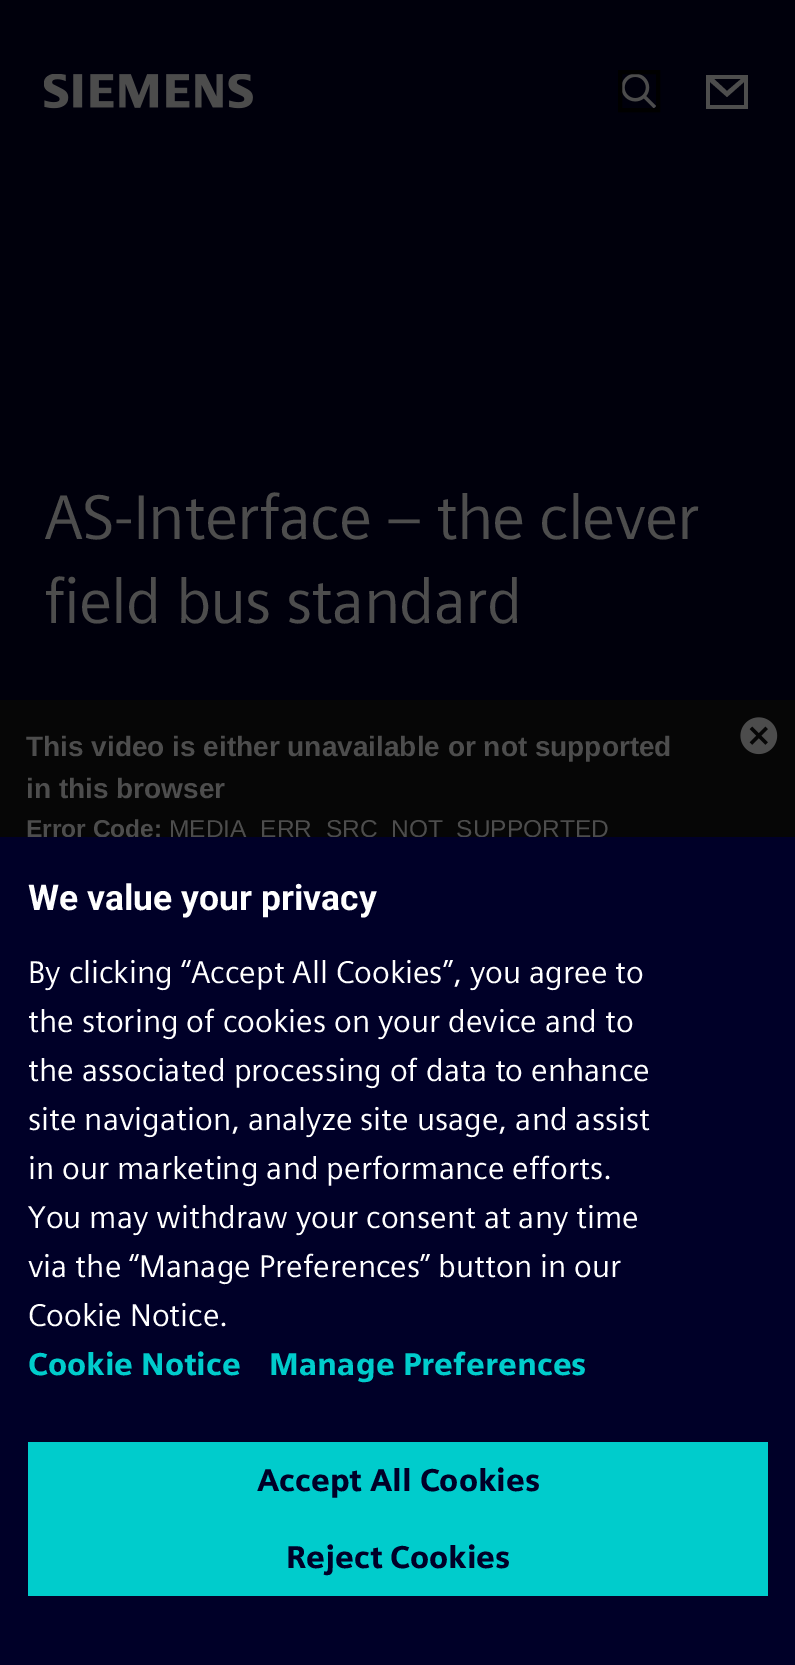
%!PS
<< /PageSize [795 1665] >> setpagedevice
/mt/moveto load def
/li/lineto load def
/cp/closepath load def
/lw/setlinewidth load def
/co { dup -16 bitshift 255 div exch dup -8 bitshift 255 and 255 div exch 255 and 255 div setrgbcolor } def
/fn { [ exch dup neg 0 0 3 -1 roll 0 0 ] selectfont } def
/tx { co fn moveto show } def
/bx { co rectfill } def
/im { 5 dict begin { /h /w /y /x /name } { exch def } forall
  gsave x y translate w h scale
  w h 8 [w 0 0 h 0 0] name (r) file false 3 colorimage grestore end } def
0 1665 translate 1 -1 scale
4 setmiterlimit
0 0 795 1665 16#00000C bx
(media/1.raw) 44 74 209 35 im
(media/2.raw) 622 74 34 34 im
16#000000 co
4 lw
620 72 38 38 rectstroke
16#4D4D4D co
706 75 mt 706 109 li 748 109 li 748 75 li cp 741 79 mt 727 91 li 714 79 li cp 710 82 mt 710 105 li 744 105 li 744 82 li 727 97 li cp eofill
0 700 795 137 16#060606 bx
(media/3.raw) 740 717 38 38 im
/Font-Regular 63 fn
16#4D4D4D co
44 539 mt -.9 0 (AS-Interface – the clever) ashow
44 623 mt -.9 0 (field bus standard) ashow
(This video is either unavailable or not supported) 26 756 /LiberationSans-Bold 28 16#4D4D4D tx
(in this browser) 26 798 /LiberationSans-Bold 28 16#4D4D4D tx
(Error Code:) 26 837 /LiberationSans-Bold 24.5 16#4D4D4D tx
(MEDIA_ERR_SRC_NOT_SUPPORTED) 169 837 /LiberationSans-Regular 24.5 16#4D4D4D tx
0 837 795 828 16#000028 bx
(We value your privacy) 28 910 /Roboto-Bold 35.5 16#FFFFFF tx
(By clicking “Accept All Cookies”, you agree to) 28 983 /Font-Regular 31.5 16#FFFFFF tx
(the storing of cookies on your device and to) 28 1032 /Font-Regular 31.5 16#FFFFFF tx
(the associated processing of data to enhance) 28 1081 /Font-Regular 31.5 16#FFFFFF tx
(site navigation, analyze site usage, and assist) 28 1130 /Font-Regular 31.5 16#FFFFFF tx
(in our marketing and performance efforts.) 28 1179 /Font-Regular 31.5 16#FFFFFF tx
(You may withdraw your consent at any time) 28 1228 /Font-Regular 31.5 16#FFFFFF tx
(via the “Manage Preferences” button in our) 28 1277 /Font-Regular 31.5 16#FFFFFF tx
(Cookie Notice.) 28 1326 /Font-Regular 31.5 16#FFFFFF tx
(Cookie Notice) 28 1375 /Font-Bold 31.5 16#00CCCC tx
(Manage Preferences) 269 1375 /Font-Bold 31.5 16#00CCCC tx
28 1442 740 154 16#00CCCC bx
(Accept All Cookies) 257 1491 /Font-Bold 31.5 16#000028 tx
(Reject Cookies) 286 1568 /Font-Bold 31.5 16#000028 tx
showpage
